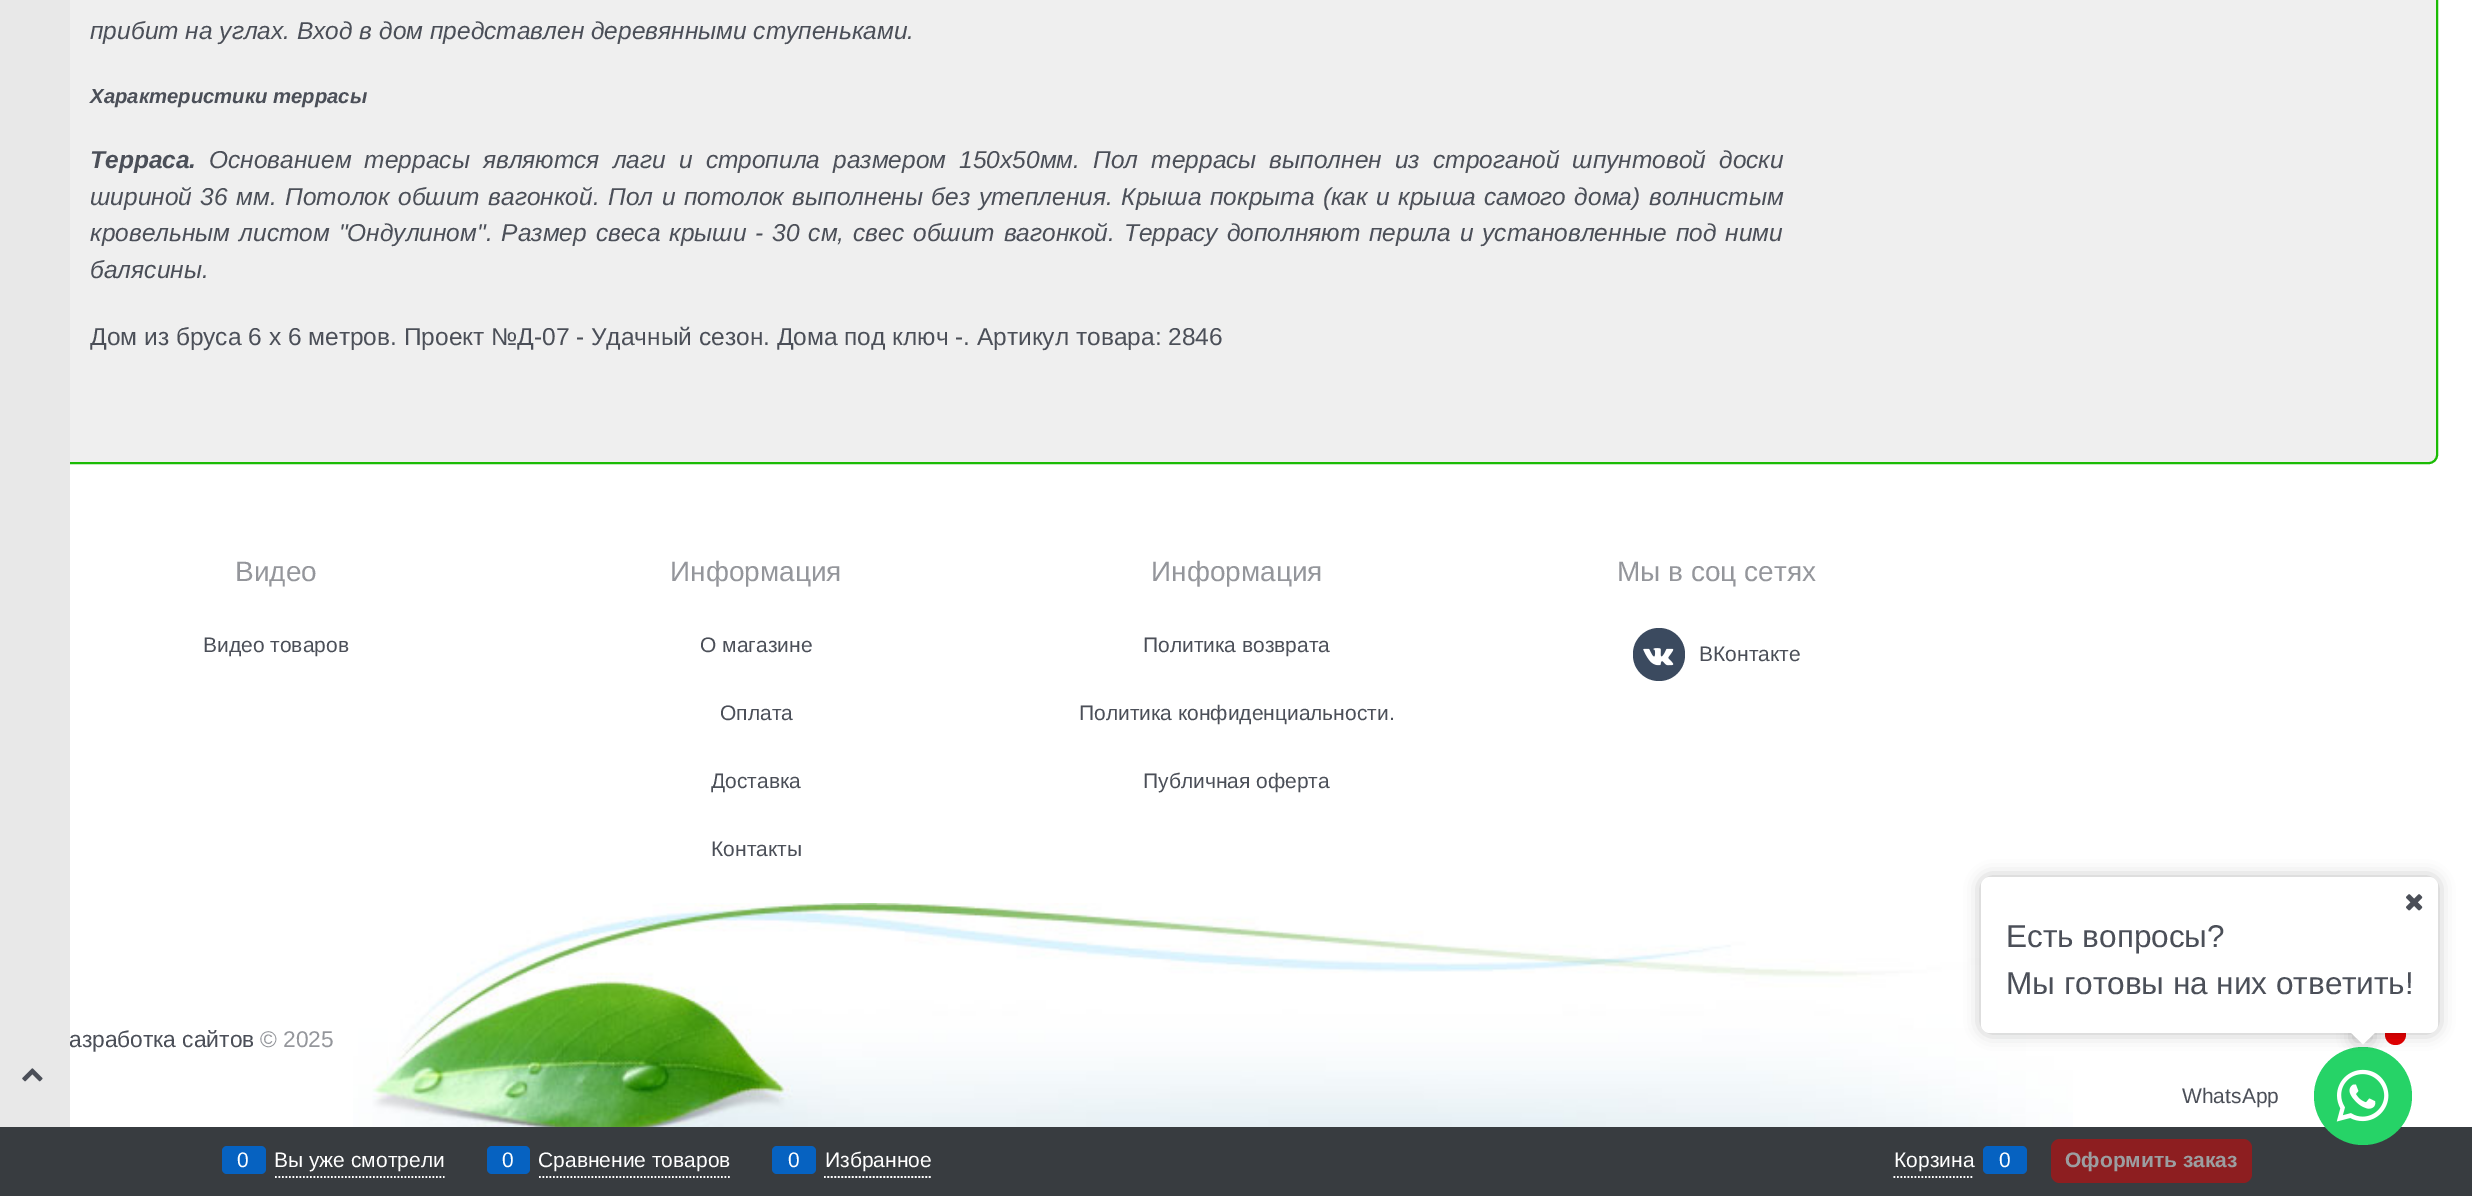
%!PS
<< /PageSize [2472 1196] /PageUsesTransparency true >> setpagedevice
/mt/moveto load def
/li/lineto load def
/cp/closepath load def
/fl/fill load def
/st/stroke load def
/gs/gsave load def
/gr/grestore load def
/lw/setlinewidth load def
/co { dup -16 bitshift 255 div exch dup -8 bitshift 255 and 255 div exch 255 and 255 div setrgbcolor } def
/fn { [ exch dup neg 0 0 3 -1 roll 0 0 ] selectfont } def
/tx { co fn moveto show } def
/bx { co rectfill } def
/al { dup .setfillconstantalpha .setstrokeconstantalpha } def
/ci { newpath 0 360 arc closepath } def
/rr { 5 dict begin { /r /h /w /y /x } { exch def } forall
  x r add y moveto x w add y 2 copy h add r arct x w add y h add x 1 index r arct
  x y h add x y r arct x y 2 copy exch w add exch r arct closepath end } def
/sh { 12 dict begin { /a /b /q /h /w /y /x } { exch def } forall gsave /was 0 def
  9 -2 -9 { dup b mul 4 div /e exch def 1 sub .425 mul 2.718 exch exp 1 add a .99 .min exch div /now exch def
    1 1 now sub 1 was sub div sub al /was now def
    w h .min e 2 mul add 0 gt { x e sub y e sub w e 2 mul add h e 2 mul add
      q e add b .6 mul add w h .min 2 div e add .min 0 .max rr fill } if } for grestore end } def
/im { 5 dict begin { /h /w /y /x /name } { exch def } forall
  gsave x y translate w h scale
  w h 8 [w 0 0 h 0 0] name (r) file false 3 colorimage grestore end } def
0 .pushpdf14devicefilter
0 1196 translate 1 -1 scale
4 setmiterlimit
0 0 2472 1196 16#FFFFFF bx
16#EFEFEF co
38 -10 2399 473 8 rr gs fl gr
16#1BBB04 co
2 lw
st
16#3B4A5F co
1633 628 52 53 26 rr fl
(media/2.raw) 1643 648 31 18 im
0 1127 2472 69 16#383C40 bx
16#FFFFFF co
1.8 lw
[1.75 1.75] 0 setdash
275 1177 mt 444.5 1177 li st
16#0662C1 co
222 1146 44 28 5 rr fl
16#FFFFFF co
539 1177 mt 731.5 1177 li st
16#0662C1 co
487 1146 43 28 5 rr fl
16#FFFFFF co
824 1177 mt 931 1177 li st
16#0662C1 co
772 1146 44 28 5 rr fl
16#FFFFFF co
1893.5 1177 mt 1974 1177 li st
16#0662C1 co
1983 1146 44 28 5 rr fl
16#8D1E20 co
2051 1139 201 44 9 rr fl
(media/3.raw) 353 903 1720 224 im
16#E40001 co
2395.5 1034.5 10.5 ci fl
16#26D367 co
2363 1096 49 ci fl
16#000000 co
1981 877 457 156 9 8 .25 sh
16#FFFFFF co
1981 877 457 156 9 rr fl
(media/4.raw) 2406 894 17 17 im
gs
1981 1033 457 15 rectclip
16#000000 co
2354 1024 17 17 0 8 .25 sh
gr
gs
1981 1033 457 15 rectclip
2363 1019.5 mt 2375.5 1032 li 2363 1044.5 li 2350.5 1032 li cp fl
gr
(media/5.raw) 2336 1069 53 53 im
(прибит на углах. Вход в дом представлен деревянными ступеньками.) 90 39 /LiberationSans-Italic 24.5 16#4B4F58 tx
(Характеристики террасы) 90 103 /LiberationSans-BoldItalic 20.3 16#4B4F58 tx
(Терраса.) 90 168 /LiberationSans-BoldItalic 24.5 16#4B4F58 tx
/LiberationSans-Italic 24.5 fn
209 168 mt 6.25 0 32 (Основанием террасы являются лаги и стропила размером 150х50мм. Пол террасы выполнен из строганой шпунтовой доски) widthshow
90 205 mt 1.7 0 32 (шириной 36 мм. Потолок обшит вагонкой. Пол и потолок выполнены без утепления. Крыша покрыта \(как и крыша самого дома\) волнистым) widthshow
90 241 mt 2.1 0 32 (кровельным листом "Ондулином". Размер свеса крыши - 30 см, свес обшит вагонкой. Террасу дополняют перила и установленные под ними) widthshow
(балясины.) 90 278 /LiberationSans-Italic 24.5 16#4B4F58 tx
(Дом из бруса 6 х 6 метров. Проект №Д-07 - Удачный сезон. Дома под ключ -. Артикул товара: 2846) 90 345 /LiberationSans-Regular 24.5 16#4B4F58 tx
(Видео) 235 581 /LiberationSans-Regular 28 16#94969B tx
(Видео товаров) 203 652 /LiberationSans-Regular 21 16#4B4F58 tx
(Информация) 670 581 /LiberationSans-Regular 28 16#94969B tx
(О магазине) 700 652 /LiberationSans-Regular 21 16#4B4F58 tx
(Оплата) 720 720 /LiberationSans-Regular 21 16#4B4F58 tx
(Доставка) 711 788 /LiberationSans-Regular 21 16#4B4F58 tx
(Контакты) 711 856 /LiberationSans-Regular 21 16#4B4F58 tx
(Информация) 1151 581 /LiberationSans-Regular 28 16#94969B tx
(Политика возврата) 1143 652 /LiberationSans-Regular 21 16#4B4F58 tx
(Политика конфиденциальности.) 1079 720 /LiberationSans-Regular 21 16#4B4F58 tx
(Публичная оферта) 1143 788 /LiberationSans-Regular 21 16#4B4F58 tx
(Мы в соц сетях) 1617 581 /LiberationSans-Regular 28 16#94969B tx
(ВКонтакте) 1699 661 /LiberationSans-Regular 21 16#4B4F58 tx
(азработка сайтов) 69 1047 /LiberationSans-Regular 22.75 16#4B4F58 tx
0 0 70 1127 16#E8E8E8 bx
(media/1.raw) 22 1068 21 14 im
(© 2025) 260 1047 /LiberationSans-Regular 22.75 16#94969B tx
(0) 237 1167 /LiberationSans-Regular 21 16#FFFFFF tx
(Вы уже смотрели) 274 1167 /LiberationSans-Regular 21 16#FFFFFF tx
(0) 502 1167 /LiberationSans-Regular 21 16#FFFFFF tx
(Сравнение товаров) 538 1167 /LiberationSans-Regular 21 16#FFFFFF tx
(0) 788 1167 /LiberationSans-Regular 21 16#FFFFFF tx
(Избранное) 825 1167 /LiberationSans-Regular 21 16#FFFFFF tx
(Корзина) 1894 1167 /LiberationSans-Regular 21 16#FFFFFF tx
(0) 1999 1167 /LiberationSans-Regular 21 16#FFFFFF tx
(Оформить заказ) 2065 1167 /LiberationSans-Bold 21 16#9C9EA0 tx
(Есть вопросы?) 2006 947 /LiberationSans-Regular 31.5 16#4B4F58 tx
(Мы готовы на них ответить!) 2006 994 /LiberationSans-Regular 31.5 16#4B4F58 tx
(WhatsApp) 2182 1103 /LiberationSans-Regular 21 16#4B4F58 tx
.poppdf14devicefilter showpage
